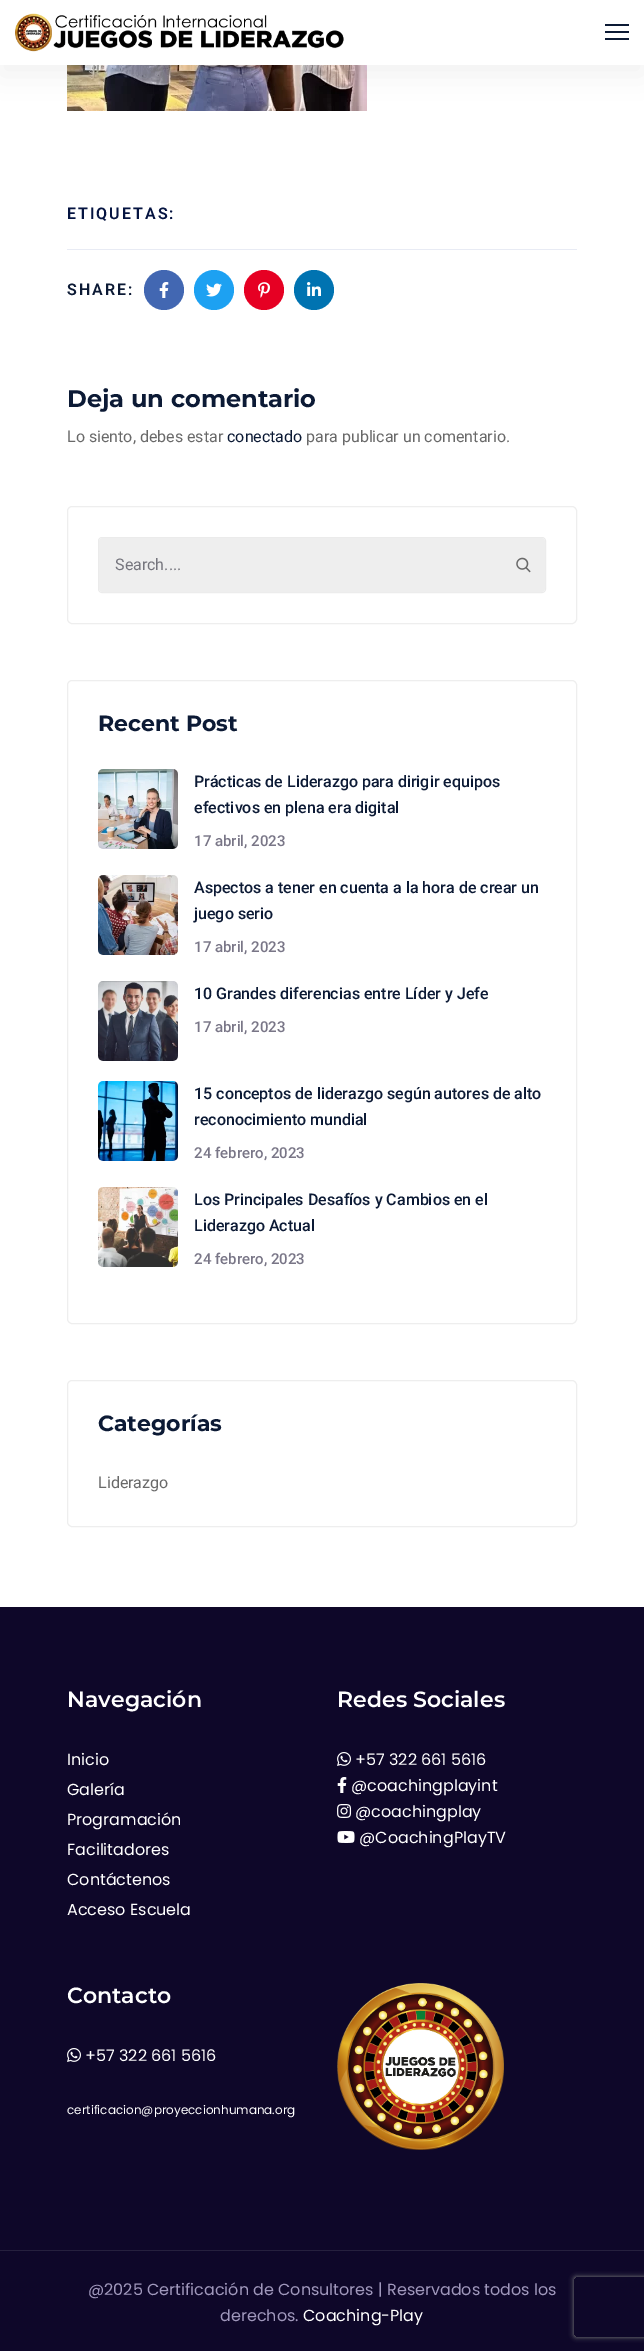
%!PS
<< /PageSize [644 2351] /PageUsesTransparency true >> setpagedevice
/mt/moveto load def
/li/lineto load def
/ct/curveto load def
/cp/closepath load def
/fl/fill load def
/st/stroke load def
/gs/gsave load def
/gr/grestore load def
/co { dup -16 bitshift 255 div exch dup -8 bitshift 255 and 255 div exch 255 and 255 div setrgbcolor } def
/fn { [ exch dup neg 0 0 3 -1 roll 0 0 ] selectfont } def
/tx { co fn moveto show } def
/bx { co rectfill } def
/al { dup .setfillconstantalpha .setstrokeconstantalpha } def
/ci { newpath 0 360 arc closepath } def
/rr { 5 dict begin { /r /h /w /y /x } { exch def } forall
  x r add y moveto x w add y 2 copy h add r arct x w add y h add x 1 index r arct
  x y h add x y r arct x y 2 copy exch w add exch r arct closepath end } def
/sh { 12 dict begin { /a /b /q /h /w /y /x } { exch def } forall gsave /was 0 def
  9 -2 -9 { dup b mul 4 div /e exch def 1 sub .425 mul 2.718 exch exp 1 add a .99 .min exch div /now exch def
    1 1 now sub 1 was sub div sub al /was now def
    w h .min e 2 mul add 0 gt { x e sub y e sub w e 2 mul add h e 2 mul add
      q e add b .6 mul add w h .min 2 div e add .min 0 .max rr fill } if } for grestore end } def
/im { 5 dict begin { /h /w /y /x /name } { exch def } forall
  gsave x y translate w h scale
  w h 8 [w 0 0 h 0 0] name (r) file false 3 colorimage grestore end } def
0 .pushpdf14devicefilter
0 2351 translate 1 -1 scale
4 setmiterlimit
0 0 644 2351 16#FFFFFF bx
(media/2.raw) 67 65 300 46 im
16#000000 co
0 10 644 65 0 15 .05 sh
0 0 644 65 16#FFFFFF bx
(media/1.raw) 15 13 329 39 im
605 24 24 2 16#0C1A35 bx
605 31 24 2 16#0C1A35 bx
605 38 24 2 16#0C1A35 bx
67 249 510 1 16#E8EBF4 bx
16#4267B2 co
164 290 20 ci fl
(media/3.raw) 159 282 10 16 im
16#1DA1F2 co
214 290 20 ci fl
(media/4.raw) 206 283 16 14 im
16#E60023 co
264 290 20 ci fl
(media/5.raw) 258 282 12 16 im
16#0073B1 co
314 290 20 ci fl
(media/6.raw) 307 282 14 14 im
16#EEEEEE co
67.5 506.5 509 117 4.5 rr st
16#EBEBEB co
98.5 537.5 447 55 3.5 rr st
16#EEEEEE co
99.5 538.5 445 53 3.5 rr gs fl gr
st
(media/7.raw) 516 557 15 16 im
67.5 680.5 509 643 4.5 rr st
(media/8.raw) 98 769 80 80 im
(media/9.raw) 98 875 80 80 im
(media/10.raw) 98 981 80 80 im
(media/11.raw) 98 1081 80 80 im
(media/12.raw) 98 1187 80 80 im
67.5 1380.5 509 146 4.5 rr st
0 1607 644 744 16#0E0729 bx
(media/13.raw) 337 1752 14 14 im
(media/14.raw) 337 1777 10 16 im
(media/15.raw) 337 1804 15 14 im
(media/16.raw) 337 1831 18 12 im
(media/13.raw) 67 2048 14 14 im
(media/17.raw) 337 1983 167 167 im
0 2250 644 1 16#26203E bx
gs
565 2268 mt 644 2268 li 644 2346 li 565 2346 li cp 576 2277 mt 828 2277 li 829 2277 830 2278 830 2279 ct 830 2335 li 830 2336 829 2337 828 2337 ct 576 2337 li 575 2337 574 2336 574 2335 ct 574 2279 li 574 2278 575 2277 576 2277 ct cp eoclip newpath
16#808080 co
574 2277 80 60 2 2.5 1 sh
gr
/Roboto-SemiBold 16 fn
16#051441 co
67 219 mt 2 0 (ETIQUETAS:) ashow
16#0C1A35 co
67 295 mt 2 0 (SHARE:) ashow
(Deja un comentario) 67 407 /Montserrat-Bold 24 16#0C1A35 tx
(Lo siento, debes estar) 67 442 /Roboto-Regular 16 16#696969 tx
(conectado) 227 442 /Roboto-Regular 16 16#0C1A35 tx
(para publicar un comentario.) 306 442 /Roboto-Regular 16 16#696969 tx
(Search....) 115 570 /Roboto-Regular 16 16#75757D tx
(Recent Post) 98 731 /Montserrat-Bold 22 16#0C1A35 tx
(Prácticas de Liderazgo para dirigir equipos) 194 787 /Roboto-Medium 16 16#0C1A35 tx
(efectivos en plena era digital) 194 813 /Roboto-Medium 16 16#0C1A35 tx
(17 abril, 2023) 194 846 /Roboto-Medium 15 16#797687 tx
(Aspectos a tener en cuenta a la hora de crear un) 194 893 /Roboto-Medium 16 16#0C1A35 tx
(juego serio) 194 919 /Roboto-Medium 16 16#0C1A35 tx
(17 abril, 2023) 194 952 /Roboto-Medium 15 16#797687 tx
(10 Grandes diferencias entre Líder y Jefe) 194 999 /Roboto-Medium 16 16#0C1A35 tx
(17 abril, 2023) 194 1032 /Roboto-Medium 15 16#797687 tx
(15 conceptos de liderazgo según autores de alto) 194 1099 /Roboto-Medium 16 16#0C1A35 tx
(reconocimiento mundial) 194 1125 /Roboto-Medium 16 16#0C1A35 tx
(24 febrero, 2023) 194 1158 /Roboto-Medium 15 16#797687 tx
(Los Principales Desafíos y Cambios en el) 194 1205 /Roboto-Medium 16 16#0C1A35 tx
(Liderazgo Actual) 194 1231 /Roboto-Medium 16 16#0C1A35 tx
(24 febrero, 2023) 194 1264 /Roboto-Medium 15 16#797687 tx
(Categorías) 98 1431 /Montserrat-Bold 22 16#0C1A35 tx
(Liderazgo) 98 1488 /Roboto-Regular 16 16#696969 tx
(Navegación) 67 1707 /Montserrat-SemiBold 22 16#FFFFFF tx
(Inicio) 67 1765 /Poppins-Regular 16 16#FFFFFF tx
(Galería) 67 1795 /Poppins-Regular 16 16#FFFFFF tx
(Programación) 67 1825 /Poppins-Regular 16 16#FFFFFF tx
(Facilitadores) 67 1855 /Poppins-Regular 16 16#FFFFFF tx
(Contáctenos) 67 1885 /Poppins-Regular 16 16#FFFFFF tx
(Acceso Escuela) 67 1915 /Poppins-Regular 16 16#FFFFFF tx
(Redes Sociales) 337 1707 /Montserrat-SemiBold 22 16#FFFFFF tx
(+57 322 661 5616) 355 1765 /Poppins-Regular 16 16#FFFFFF tx
(@coachingplayint) 351 1791 /Poppins-Regular 16 16#FFFFFF tx
(@coachingplay) 355 1817 /Poppins-Regular 16 16#FFFFFF tx
(@CoachingPlayTV) 359 1843 /Poppins-Regular 16 16#FFFFFF tx
(Contacto) 67 2003 /Montserrat-SemiBold 22 16#FFFFFF tx
(+57 322 661 5616) 85 2061 /Poppins-Regular 16 16#FFFFFF tx
(certificacion@proyeccionhumana.org) 67 2114 /Poppins-Regular 12 16#FFFFFF tx
(@2025 Certificación de Consultores | Reservados todos los) 88 2295 /Poppins-Regular 16 16#A098BC tx
(derechos.) 220 2321 /Poppins-Regular 16 16#A098BC tx
(Coaching-Play) 303 2321 /Poppins-Regular 16 16#FFFFFF tx
.poppdf14devicefilter showpage
